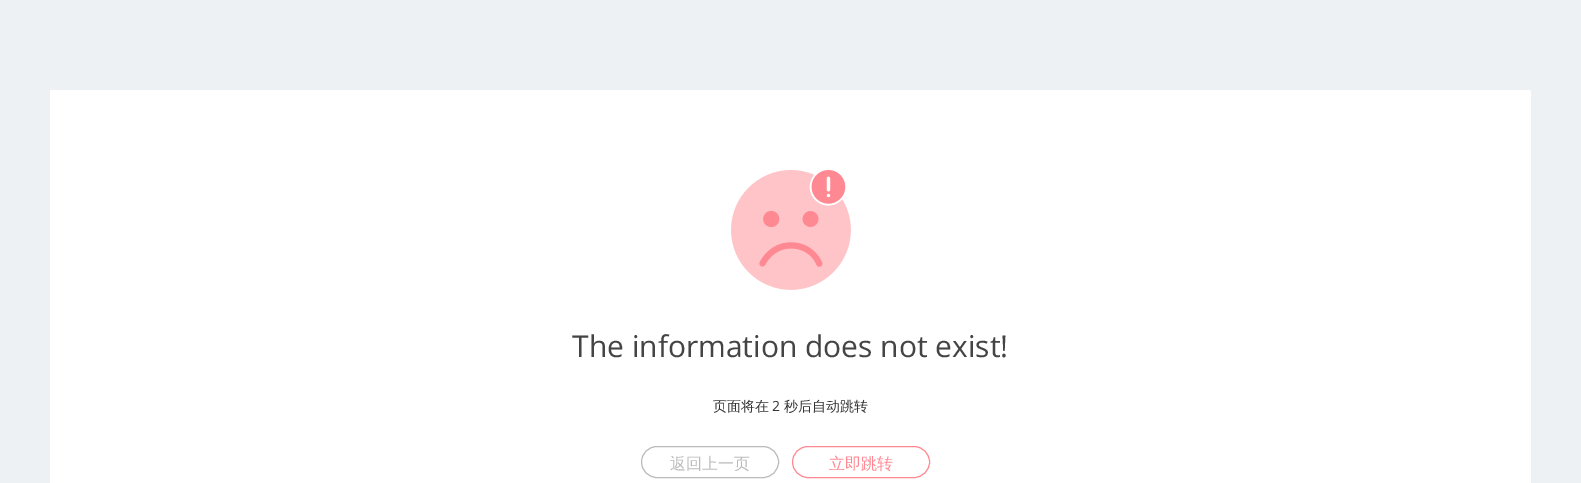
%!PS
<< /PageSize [1581 483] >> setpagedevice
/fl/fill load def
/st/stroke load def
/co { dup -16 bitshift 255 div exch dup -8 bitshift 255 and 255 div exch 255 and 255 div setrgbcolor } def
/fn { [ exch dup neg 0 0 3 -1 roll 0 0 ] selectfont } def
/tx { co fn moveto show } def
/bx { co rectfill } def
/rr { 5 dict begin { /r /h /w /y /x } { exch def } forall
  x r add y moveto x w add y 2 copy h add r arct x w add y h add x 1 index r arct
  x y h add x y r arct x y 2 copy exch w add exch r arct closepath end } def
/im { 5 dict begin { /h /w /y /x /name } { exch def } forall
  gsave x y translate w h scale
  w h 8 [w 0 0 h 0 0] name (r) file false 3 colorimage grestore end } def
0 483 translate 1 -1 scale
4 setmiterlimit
0 0 1581 483 16#EDF1F4 bx
16#FFFFFF co
50 90 1481 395 2 rr fl
(media/1.raw) 731 170 120 120 im
16#BBBBBB co
641.5 446.5 137 31 15.5 rr st
16#FF8992 co
792.5 446.5 137 31 15.5 rr st
(The information does not exist!) 572 357 /OpenSans-Regular 30 16#444444 tx
(页面将在) 713 411 /WenQuanYiZenHei-Medium 14 16#333333 tx
(2) 772 411 /OpenSans-Regular 14 16#333333 tx
(秒后自动跳转) 784 411 /WenQuanYiZenHei-Medium 14 16#333333 tx
(返回上一页) 670 469 /WenQuanYiZenHei-Medium 16 16#BBBBBB tx
(立即跳转) 829 469 /WenQuanYiZenHei-Medium 16 16#FF8992 tx
showpage
